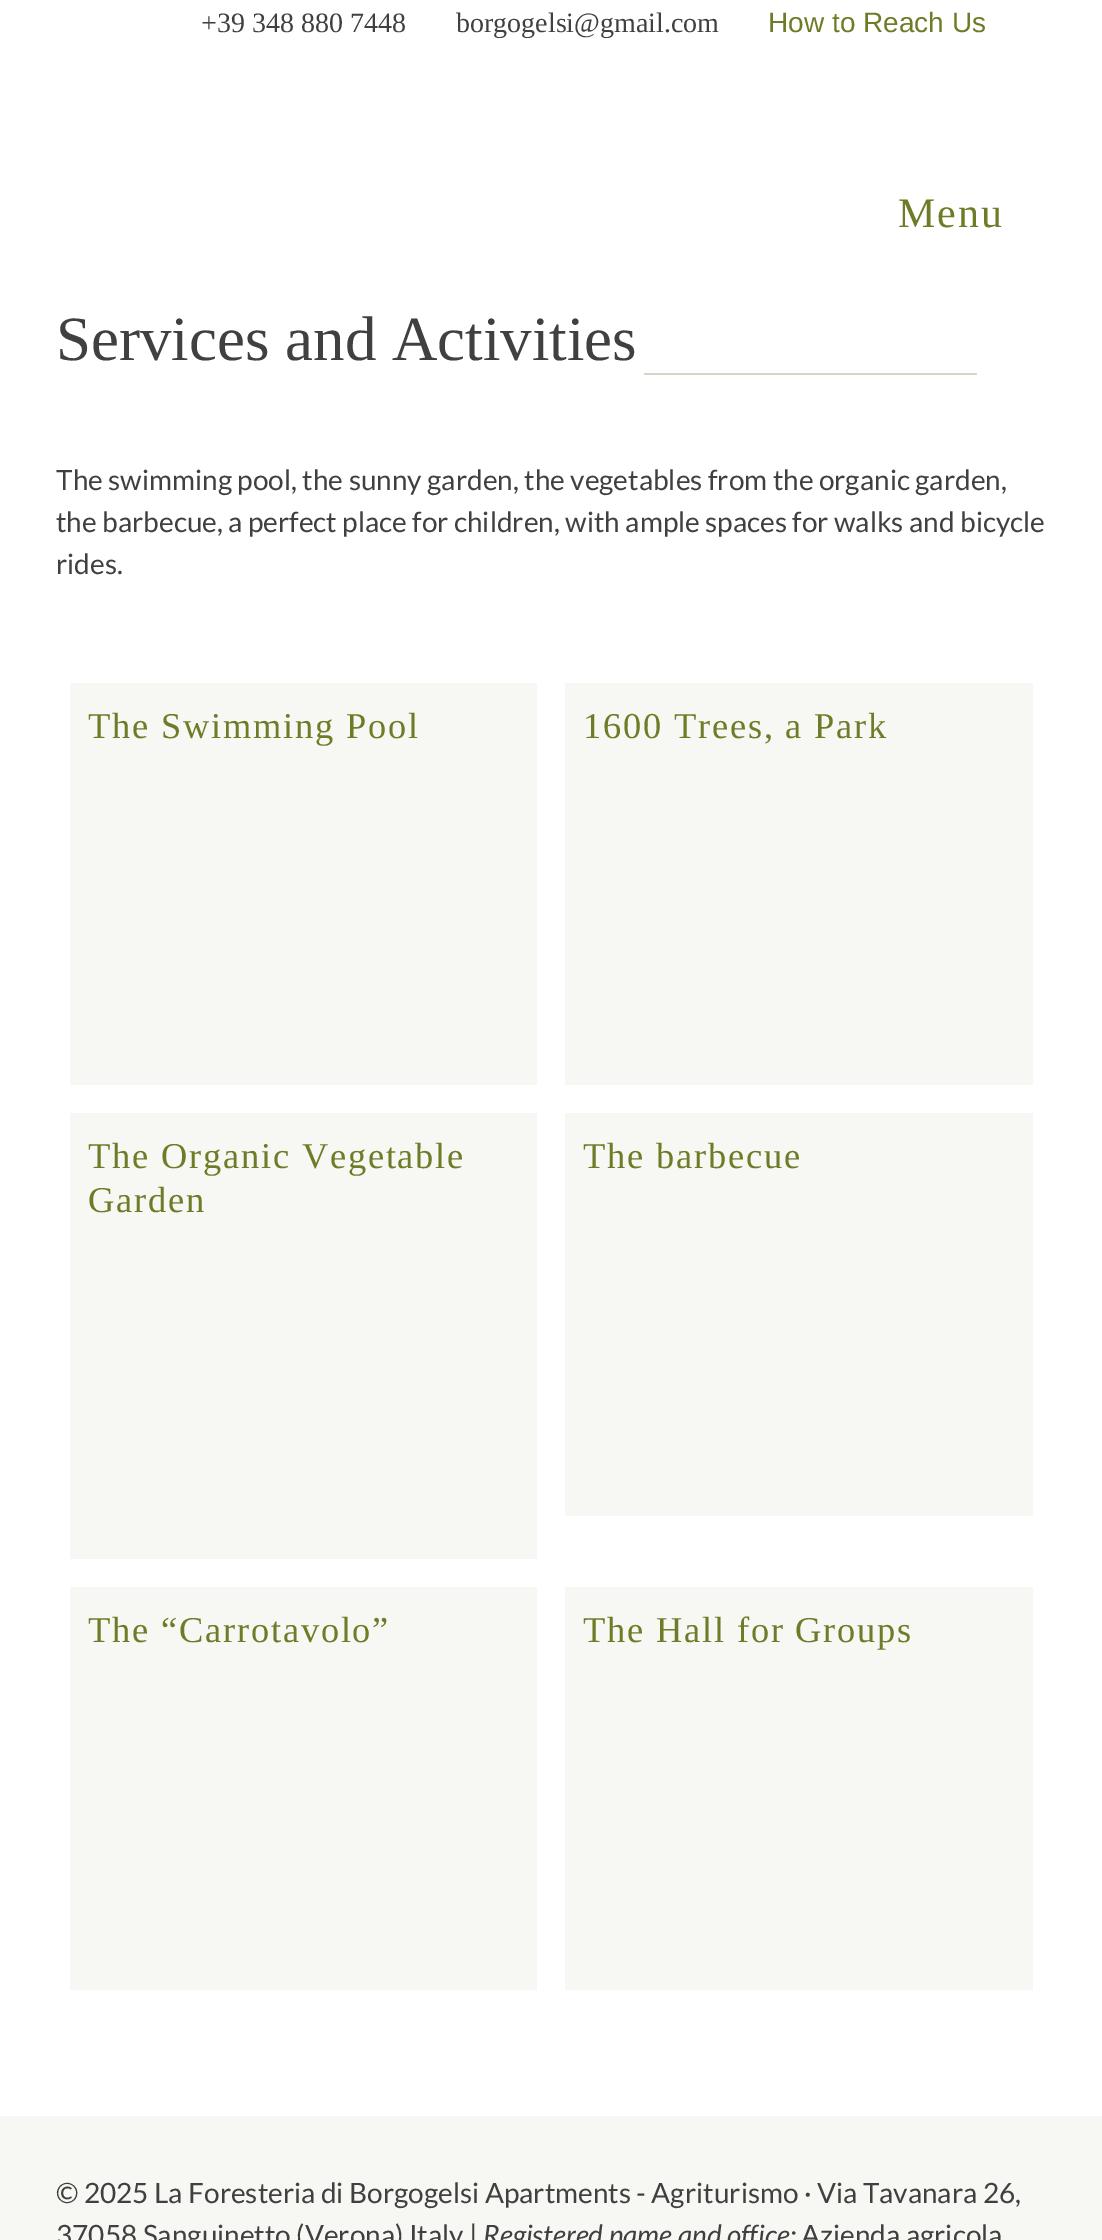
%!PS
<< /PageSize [1102 2240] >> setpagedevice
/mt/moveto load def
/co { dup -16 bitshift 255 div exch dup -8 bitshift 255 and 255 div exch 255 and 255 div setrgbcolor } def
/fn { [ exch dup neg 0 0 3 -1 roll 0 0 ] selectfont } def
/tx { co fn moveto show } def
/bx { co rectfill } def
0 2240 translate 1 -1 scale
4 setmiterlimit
0 0 1102 2240 16#FFFFFF bx
644 373 333 2 16#D6D6C8 bx
70 683 467 402 16#F7F7F4 bx
565 683 468 402 16#F7F7F4 bx
70 1113 467 446 16#F7F7F4 bx
565 1113 468 403 16#F7F7F4 bx
70 1587 467 403 16#F7F7F4 bx
565 1587 468 403 16#F7F7F4 bx
0 2116 1102 124 16#F7F7F4 bx
(+39 348 880 7448) 201 32 /LiberationSerif-Regular 28 16#404040 tx
(borgogelsi@gmail.com) 456 32 /LiberationSerif-Regular 28 16#404040 tx
(How to Reach Us) 768 32 /LiberationSans-Regular 28 16#6E7C27 tx
/LiberationSerif-Regular 42 fn
898 227 mt 2 0 (Menu) ashow
(Services and Activities) 56 360 /LiberationSerif-Regular 63 16#404040 tx
(The swimming pool, the sunny garden, the vegetables from the organic garden,) 56 490 /Lato-Regular 28 16#404040 tx
(the barbecue, a perfect place for children, with ample spaces for walks and bicycle) 56 532 /Lato-Regular 28 16#404040 tx
(rides.) 56 574 /Lato-Regular 28 16#404040 tx
/LiberationSerif-Regular 36.4 fn
16#6E7C27 co
88 738 mt 1.8 0 (The Swimming Pool) ashow
583 738 mt 1.8 0 (1600 Trees, a Park) ashow
88 1168 mt 1.8 0 (The Organic Vegetable) ashow
88 1212 mt 1.8 0 (Garden) ashow
583 1168 mt 1.8 0 (The barbecue) ashow
88 1642 mt 1.8 0 (The “Carrotavolo”) ashow
583 1642 mt 1.8 0 (The Hall for Groups) ashow
(© 2025 La Foresteria di Borgogelsi Apartments - Agriturismo · Via Tavanara 26,) 56 2203 /Lato-Regular 28 16#404040 tx
(37058 Sanguinetto \(Verona\) Italy |) 56 2245 /Lato-Regular 28 16#404040 tx
(Registered name and office:) 483 2245 /Lato-Italic 28 16#404040 tx
(Azienda agricola) 801 2245 /Lato-Regular 28 16#404040 tx
showpage
